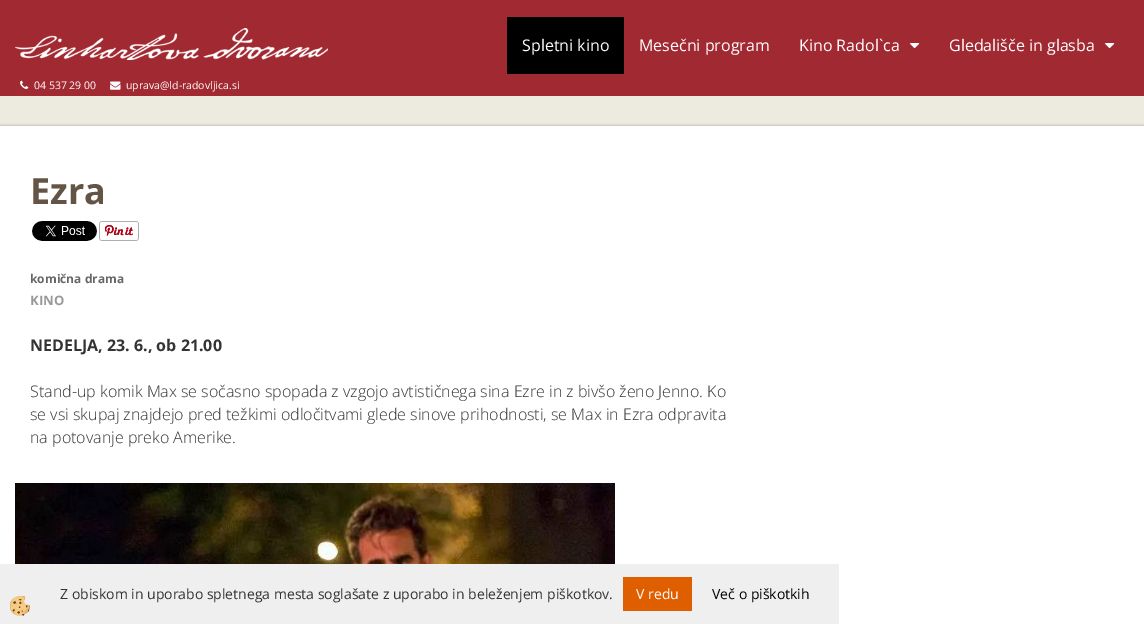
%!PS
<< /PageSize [1144 624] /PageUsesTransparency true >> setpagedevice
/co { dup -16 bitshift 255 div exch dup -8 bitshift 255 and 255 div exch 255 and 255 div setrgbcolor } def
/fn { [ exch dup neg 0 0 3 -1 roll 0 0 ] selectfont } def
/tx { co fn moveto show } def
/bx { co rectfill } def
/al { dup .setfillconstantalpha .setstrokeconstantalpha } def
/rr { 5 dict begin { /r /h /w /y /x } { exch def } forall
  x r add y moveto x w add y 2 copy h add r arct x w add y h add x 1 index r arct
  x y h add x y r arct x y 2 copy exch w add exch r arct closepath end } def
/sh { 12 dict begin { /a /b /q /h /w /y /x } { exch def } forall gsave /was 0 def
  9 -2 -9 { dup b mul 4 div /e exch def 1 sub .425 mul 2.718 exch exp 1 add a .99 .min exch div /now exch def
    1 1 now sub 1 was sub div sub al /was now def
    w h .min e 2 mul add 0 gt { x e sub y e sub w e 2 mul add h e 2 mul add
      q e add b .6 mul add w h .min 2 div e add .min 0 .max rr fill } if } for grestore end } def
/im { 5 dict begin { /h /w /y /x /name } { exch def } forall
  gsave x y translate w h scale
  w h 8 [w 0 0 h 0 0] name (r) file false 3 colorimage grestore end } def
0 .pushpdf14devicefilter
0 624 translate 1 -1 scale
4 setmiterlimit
0 0 1144 624 16#EDEADF bx
0 0 1144 96 16#A02932 bx
(media/1.raw) 15 28 313 32 im
507 17 117 57 16#000000 bx
(media/2.raw) 910 43 10 6 im
(media/2.raw) 1105 43 10 6 im
(media/3.raw) 20 80 9 9 im
(media/4.raw) 110 81 11 9 im
0 126 1144 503 0 1.5 .3 sh
0 126 1144 498 16#FFFFFF bx
(media/5.raw) 32 221 65 20 im
(media/6.raw) 99 221 40 20 im
(media/7.raw) 15 483 600 81 im
0 564 839 60 16#EFEFEF bx
(media/8.raw) 10 596 20 20 im
623 577 69 34 16#DF5E00 bx
(Spletni kino) 522 51 /OpenSans-Regular 16 16#FFFFFF tx
(Mesečni program) 639 51 /OpenSans-Regular 16 16#FFFFFF tx
(Kino Radol`ca) 799 51 /OpenSans-Regular 16 16#FFFFFF tx
(Gledališče in glasba) 949 51 /OpenSans-Regular 16 16#FFFFFF tx
(04 537 29 00) 34 89 /OpenSans-Regular 10.5 16#FFFFFF tx
(uprava@ld-radovljica.si) 126 89 /OpenSans-Regular 10.5 16#FFFFFF tx
(Ezra) 30 204 /OpenSans-Bold 36 16#635446 tx
(komična drama) 30 283 /OpenSans-Bold 12 16#666666 tx
(KINO) 30 305 /OpenSans-Bold 13 16#999999 tx
(NEDELJA, 23. 6., ob 21.00) 30 351 /OpenSans-Bold 16 16#333333 tx
(Stand-up komik Max se sočasno spopada z vzgojo avtističnega sina Ezre in z bivšo ženo Jenno. Ko) 30 397 /OpenSans-Light 16 16#333333 tx
(se vsi skupaj znajdejo pred težkimi odločitvami glede sinove prihodnosti, se Max in Ezra odpravita) 30 420 /OpenSans-Light 16 16#333333 tx
(na potovanje preko Amerike.) 30 443 /OpenSans-Light 16 16#333333 tx
(Z obiskom in uporabo spletnega mesta soglašate z uporabo in beleženjem piškotkov.) 60 599 /OpenSans-Regular 14 16#333333 tx
(V redu) 636 599 /OpenSans-Regular 14 16#FFFFFF tx
(Več o piškotkih) 712 599 /OpenSans-Regular 14 16#000000 tx
.poppdf14devicefilter showpage
